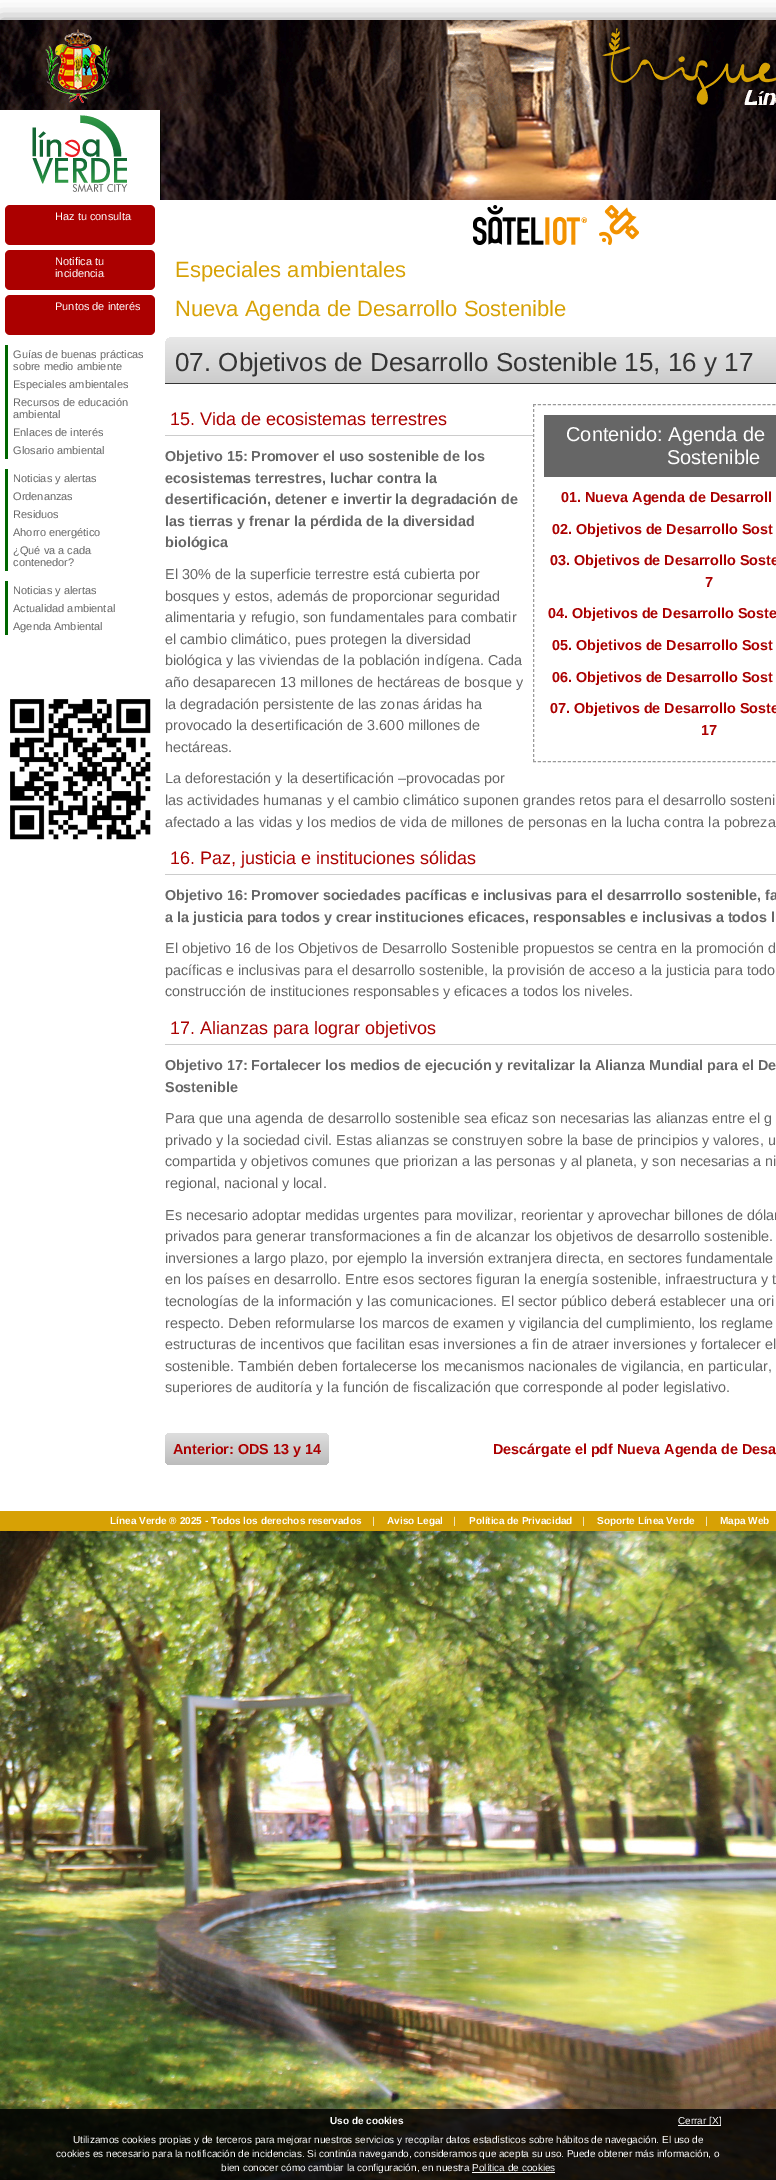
%!PS
<< /PageSize [776 2180] /PageUsesTransparency true >> setpagedevice
/mt/moveto load def
/li/lineto load def
/ct/curveto load def
/cp/closepath load def
/fl/fill load def
/st/stroke load def
/gs/gsave load def
/gr/grestore load def
/co { dup -16 bitshift 255 div exch dup -8 bitshift 255 and 255 div exch 255 and 255 div setrgbcolor } def
/fn { [ exch dup neg 0 0 3 -1 roll 0 0 ] selectfont } def
/tx { co fn moveto show } def
/bx { co rectfill } def
/al { dup .setfillconstantalpha .setstrokeconstantalpha } def
/rr { 5 dict begin { /r /h /w /y /x } { exch def } forall
  x r add y moveto x w add y 2 copy h add r arct x w add y h add x 1 index r arct
  x y h add x y r arct x y 2 copy exch w add exch r arct closepath end } def
/sh { 12 dict begin { /a /b /q /h /w /y /x } { exch def } forall gsave /was 0 def
  9 -2 -9 { dup b mul 4 div /e exch def 1 sub .425 mul 2.718 exch exp 1 add a .99 .min exch div /now exch def
    1 1 now sub 1 was sub div sub al /was now def
    w h .min e 2 mul add 0 gt { x e sub y e sub w e 2 mul add h e 2 mul add
      q e add b .6 mul add w h .min 2 div e add .min 0 .max rr fill } if } for grestore end } def
/im { 5 dict begin { /h /w /y /x /name } { exch def } forall
  gsave x y translate w h scale
  w h 8 [w 0 0 h 0 0] name (r) file false 3 colorimage grestore end } def
0 .pushpdf14devicefilter
0 2180 translate 1 -1 scale
4 setmiterlimit
0 0 776 2180 16#FFFFFF bx
(media/1.raw) 0 1531 776 649 im
16#000000 co
0 20 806 1511 0 10 .4 sh
0 110 776 1401 16#FFFFFF bx
(media/2.raw) 0 20 776 90 im
(media/3.raw) 32 115 96 77 im
(media/4.raw) 160 110 616 90 im
(media/5.raw) 473 205 166 40 im
16#AB0000 co
5 205 150 40 5 rr fl
5 250 150 40 5 rr fl
5 295 150 40 5 rr fl
5 345 3 114 16#006600 bx
5 469 3 102 16#006600 bx
5 581 3 54 16#006600 bx
(media/6.raw) 10 699 141 141 im
gs 173 337 mt 776 337 li 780.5 337 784 340.5 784 345 ct 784 383 li 165 383 li 165 345 li 165 340.5 168.5 337 173 337 ct cp clip newpath
<< /ShadingType 2 /ColorSpace /DeviceRGB /Coords [530 337 530 383] /Extend [true true] /Function << /FunctionType 2 /Domain [0 1] /C0 [.91 .91 .91] /C1 [.8 .8 .8] /N 1 >> >> shfill gr
165 383 611 1 16#333333 bx
165 435 368 1 16#CCCCCC bx
16#999999 co
[3 1.99] 0 setdash
533 404.5 mt 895 404.5 li st
533 761.5 mt 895 761.5 li st
[3 2] 0 setdash
533.5 404 mt 533.5 762 li st
544 415 232 62 16#666666 bx
165 874 611 1 16#CCCCCC bx
165 1044 611 1 16#CCCCCC bx
gs 165 1433 164 32 5 rr clip newpath
<< /ShadingType 2 /ColorSpace /DeviceRGB /Coords [247 1433 247 1465] /Extend [true true] /Function << /FunctionType 2 /Domain [0 1] /C0 [.871 .871 .871] /C1 [.737 .737 .737] /N 1 >> >> shfill gr
0 1511 776 20 16#D7A105 bx
0.85 al
0 2109 776 71 16#000000 bx
1 al
678 2125 43 1 16#FFFFFF bx
472 2172 83 1 16#FFFFFF bx
(Haz tu consulta) 55 220 /LiberationSans-Regular 11 16#FFFFFF tx
(Notifica tu) 55 265 /LiberationSans-Regular 11 16#FFFFFF tx
(incidencia) 55 277 /LiberationSans-Regular 11 16#FFFFFF tx
(Puntos de interés) 55 310 /LiberationSans-Regular 11 16#FFFFFF tx
(Guías de buenas prácticas) 13 358 /LiberationSans-Regular 11 16#666666 tx
(sobre medio ambiente) 13 370 /LiberationSans-Regular 11 16#666666 tx
(Especiales ambientales) 13 388 /LiberationSans-Regular 11 16#666666 tx
(Recursos de educación) 13 406 /LiberationSans-Regular 11 16#666666 tx
(ambiental) 13 418 /LiberationSans-Regular 11 16#666666 tx
(Enlaces de interés) 13 436 /LiberationSans-Regular 11 16#666666 tx
(Glosario ambiental) 13 454 /LiberationSans-Regular 11 16#666666 tx
(Noticias y alertas) 13 482 /LiberationSans-Regular 11 16#666666 tx
(Ordenanzas) 13 500 /LiberationSans-Regular 11 16#666666 tx
(Residuos) 13 518 /LiberationSans-Regular 11 16#666666 tx
(Ahorro energético) 13 536 /LiberationSans-Regular 11 16#666666 tx
(¿Qué va a cada) 13 554 /LiberationSans-Regular 11 16#666666 tx
(contenedor?) 13 566 /LiberationSans-Regular 11 16#666666 tx
(Noticias y alertas) 13 594 /LiberationSans-Regular 11 16#666666 tx
(Actualidad ambiental) 13 612 /LiberationSans-Regular 11 16#666666 tx
(Agenda Ambiental) 13 630 /LiberationSans-Regular 11 16#666666 tx
(Especiales ambientales) 175 277 /LiberationSans-Regular 22 16#D7A105 tx
(Nueva Agenda de Desarrollo Sostenible) 175 316 /LiberationSans-Regular 22 16#D7A105 tx
(07. Objetivos de Desarrollo Sostenible 15, 16 y 17) 175 371 /LiberationSans-Regular 26 16#333333 tx
(15. Vida de ecosistemas terrestres) 170 425 /LiberationSans-Regular 18 16#AB0000 tx
(Objetivo 15: Promover el uso sostenible de los) 165 461 /LiberationSans-Bold 14.4 16#666666 tx
(ecosistemas terrestres, luchar contra la) 165 483 /LiberationSans-Bold 14.4 16#666666 tx
(desertificación, detener e invertir la degradación de) 165 504 /LiberationSans-Bold 14.4 16#666666 tx
(las tierras y frenar la pérdida de la diversidad) 165 526 /LiberationSans-Bold 14.4 16#666666 tx
(biológica) 165 547 /LiberationSans-Bold 14.4 16#666666 tx
(Contenido: Agenda de) 566 441 /LiberationSans-Regular 20 16#FFFFFF tx
(Sostenible) 667 464 /LiberationSans-Regular 20 16#FFFFFF tx
(01. Nueva Agenda de Desarroll) 561 502 /LiberationSans-Bold 14.4 16#AB0000 tx
(02. Objetivos de Desarrollo Sost) 552 534 /LiberationSans-Bold 14.4 16#AB0000 tx
(03. Objetivos de Desarrollo Soste) 550 565 /LiberationSans-Bold 14.4 16#AB0000 tx
(7) 705 587 /LiberationSans-Bold 14.4 16#AB0000 tx
(04. Objetivos de Desarrollo Soste) 548 618 /LiberationSans-Bold 14.4 16#AB0000 tx
(05. Objetivos de Desarrollo Sost) 552 650 /LiberationSans-Bold 14.4 16#AB0000 tx
(06. Objetivos de Desarrollo Sost) 552 682 /LiberationSans-Bold 14.4 16#AB0000 tx
(07. Objetivos de Desarrollo Soste) 550 713 /LiberationSans-Bold 14.4 16#AB0000 tx
(17) 701 735 /LiberationSans-Bold 14.4 16#AB0000 tx
(El 30% de la superficie terrestre está cubierta por) 165 579 /LiberationSans-Regular 14.4 16#666666 tx
(bosques y estos, además de proporcionar seguridad) 165 601 /LiberationSans-Regular 14.4 16#666666 tx
(alimentaria y refugio, son fundamentales para combatir) 165 622 /LiberationSans-Regular 14.4 16#666666 tx
(el cambio climático, pues protegen la diversidad) 165 644 /LiberationSans-Regular 14.4 16#666666 tx
(biológica y las viviendas de la población indígena. Cada) 165 665 /LiberationSans-Regular 14.4 16#666666 tx
(año desaparecen 13 millones de hectáreas de bosque y) 165 687 /LiberationSans-Regular 14.4 16#666666 tx
(la degradación persistente de las zonas áridas ha) 165 709 /LiberationSans-Regular 14.4 16#666666 tx
(provocado la desertificación de 3.600 millones de) 165 730 /LiberationSans-Regular 14.4 16#666666 tx
(hectáreas.) 165 752 /LiberationSans-Regular 14.4 16#666666 tx
(La deforestación y la desertificación –provocadas por) 165 783 /LiberationSans-Regular 14.4 16#666666 tx
(las actividades humanas y el cambio climático suponen grandes retos para el desarrollo sosteni) 165 805 /LiberationSans-Regular 14.4 16#666666 tx
(afectado a las vidas y los medios de vida de millones de personas en la lucha contra la pobreza) 165 827 /LiberationSans-Regular 14.4 16#666666 tx
(16. Paz, justicia e instituciones sólidas) 170 864 /LiberationSans-Regular 18 16#AB0000 tx
(Objetivo 16: Promover sociedades pacíficas e inclusivas para el desarrrollo sostenible, fa) 165 900 /LiberationSans-Bold 14.4 16#666666 tx
(a la justicia para todos y crear instituciones eficaces, responsables e inclusivas a todos l) 165 922 /LiberationSans-Bold 14.4 16#666666 tx
(El objetivo 16 de los Objetivos de Desarrollo Sostenible propuestos se centra en la promoción d) 165 953 /LiberationSans-Regular 14.4 16#666666 tx
(pacíficas e inclusivas para el desarrollo sostenible, la provisión de acceso a la justicia para todo) 165 975 /LiberationSans-Regular 14.4 16#666666 tx
(construcción de instituciones responsables y eficaces a todos los niveles.) 165 996 /LiberationSans-Regular 14.4 16#666666 tx
(17. Alianzas para lograr objetivos) 170 1034 /LiberationSans-Regular 18 16#AB0000 tx
(Objetivo 17: Fortalecer los medios de ejecución y revitalizar la Alianza Mundial para el De) 165 1070 /LiberationSans-Bold 14.4 16#666666 tx
(Sostenible) 165 1092 /LiberationSans-Bold 14.4 16#666666 tx
(Para que una agenda de desarrollo sostenible sea eficaz son necesarias las alianzas entre el g) 165 1123 /LiberationSans-Regular 14.4 16#666666 tx
(privado y la sociedad civil. Estas alianzas se construyen sobre la base de principios y valores, u) 165 1145 /LiberationSans-Regular 14.4 16#666666 tx
(compartida y objetivos comunes que priorizan a las personas y al planeta, y son necesarias a ni) 165 1166 /LiberationSans-Regular 14.4 16#666666 tx
(regional, nacional y local.) 165 1188 /LiberationSans-Regular 14.4 16#666666 tx
(Es necesario adoptar medidas urgentes para movilizar, reorientar y aprovechar billones de dólar) 165 1220 /LiberationSans-Regular 14.4 16#666666 tx
(privados para generar transformaciones a fin de alcanzar los objetivos de desarrollo sostenible.) 165 1241 /LiberationSans-Regular 14.4 16#666666 tx
(inversiones a largo plazo, por ejemplo la inversión extranjera directa, en sectores fundamentale) 165 1263 /LiberationSans-Regular 14.4 16#666666 tx
(en los países en desarrollo. Entre esos sectores figuran la energía sostenible, infraestructura y t) 165 1284 /LiberationSans-Regular 14.4 16#666666 tx
(tecnologías de la información y las comunicaciones. El sector público deberá establecer una ori) 165 1306 /LiberationSans-Regular 14.4 16#666666 tx
(respecto. Deben reformularse los marcos de examen y vigilancia del cumplimiento, los reglame) 165 1328 /LiberationSans-Regular 14.4 16#666666 tx
(estructuras de incentivos que facilitan esas inversiones a fin de atraer inversiones y fortalecer el) 165 1349 /LiberationSans-Regular 14.4 16#666666 tx
(sostenible. También deben fortalecerse los mecanismos nacionales de vigilancia, en particular,) 165 1371 /LiberationSans-Regular 14.4 16#666666 tx
(superiores de auditoría y la función de fiscalización que corresponde al poder legislativo.) 165 1392 /LiberationSans-Regular 14.4 16#666666 tx
(Anterior: ODS 13 y 14) 173 1454 /LiberationSans-Bold 14.4 16#AB0000 tx
(Descárgate el pdf Nueva Agenda de Desa) 493 1454 /LiberationSans-Bold 14.4 16#AB0000 tx
(Línea Verde ® 2025 - Todos los derechos reservados) 110 1524 /LiberationSans-Bold 10 16#FFFFFF tx
(|) 372 1524 /LiberationSans-Regular 10 16#FFFFFF tx
(Aviso Legal) 387 1524 /LiberationSans-Bold 10 16#FFFFFF tx
(|) 453 1524 /LiberationSans-Regular 10 16#FFFFFF tx
(Política de Privacidad) 469 1524 /LiberationSans-Bold 10 16#FFFFFF tx
(|) 582 1524 /LiberationSans-Regular 10 16#FFFFFF tx
(Soporte Línea Verde) 597 1524 /LiberationSans-Bold 10 16#FFFFFF tx
(|) 705 1524 /LiberationSans-Regular 10 16#FFFFFF tx
(Mapa Web) 720 1524 /LiberationSans-Bold 10 16#FFFFFF tx
(Uso de cookies) 330 2124 /LiberationSans-Bold 10 16#FFFFFF tx
(Cerrar [X]) 678 2124 /LiberationSans-Regular 10 16#FFFFFF tx
(Utilizamos cookies propias y de terceros para mejorar nuestros servicios y recopilar datos estadísticos sobre hábitos de navegación. El uso de) 73 2143 /LiberationSans-Regular 10 16#FFFFFF tx
(cookies es necesario para la notificación de incidencias. Si continúa navegando, consideramos que acepta su uso. Puede obtener más información, o) 56 2157 /LiberationSans-Regular 10 16#FFFFFF tx
(bien conocer cómo cambiar la configuración, en nuestra Política de cookies) 221 2171 /LiberationSans-Regular 10 16#FFFFFF tx
.poppdf14devicefilter showpage
